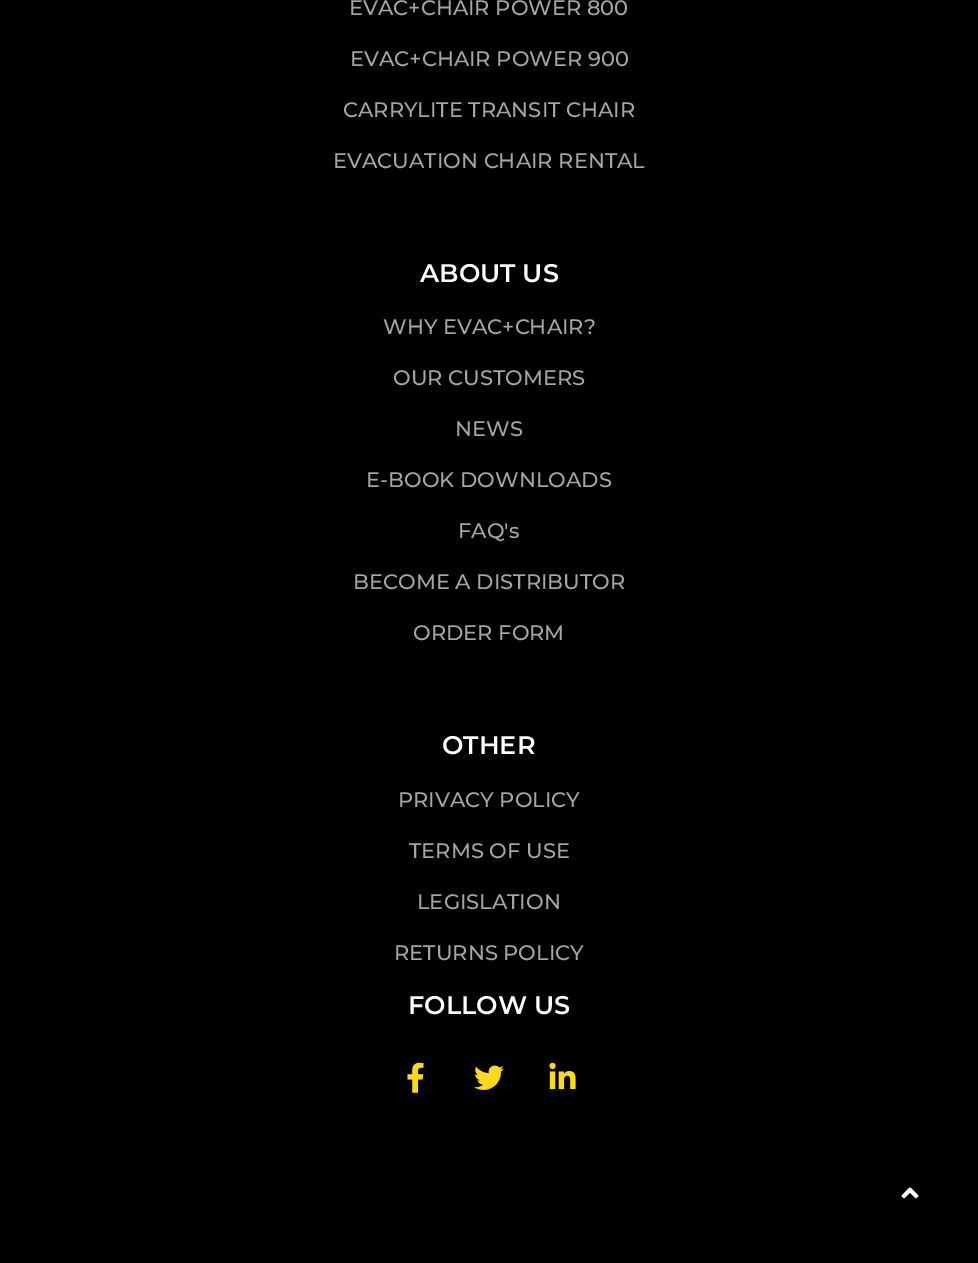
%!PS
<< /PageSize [978 1263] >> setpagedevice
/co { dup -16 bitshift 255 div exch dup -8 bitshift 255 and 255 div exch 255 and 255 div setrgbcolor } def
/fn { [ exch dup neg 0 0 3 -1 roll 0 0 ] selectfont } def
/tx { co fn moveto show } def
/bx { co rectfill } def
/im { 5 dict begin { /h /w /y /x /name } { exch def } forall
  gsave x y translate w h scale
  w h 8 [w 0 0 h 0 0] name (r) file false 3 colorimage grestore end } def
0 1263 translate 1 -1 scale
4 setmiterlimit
0 0 978 1263 16#000000 bx
(media/1.raw) 407 1062 17 31 im
(media/2.raw) 474 1065 30 25 im
(media/3.raw) 549 1062 27 27 im
(media/4.raw) 901 1187 18 12 im
(EVAC+CHAIR POWER 800) 349 15 /Montserrat-Medium 21 16#A5A5A5 tx
(EVAC+CHAIR POWER 900) 350 66 /Montserrat-Medium 21 16#A5A5A5 tx
(CARRYLITE TRANSIT CHAIR) 343 117 /Montserrat-Medium 21 16#A5A5A5 tx
(EVACUATION CHAIR RENTAL) 333 168 /Montserrat-Medium 21 16#A5A5A5 tx
(ABOUT US) 420 282 /Montserrat-SemiBold 25.5 16#FFFFFF tx
(WHY EVAC+CHAIR?) 383 334 /Montserrat-Medium 21 16#A5A5A5 tx
(OUR CUSTOMERS) 393 385 /Montserrat-Medium 21 16#A5A5A5 tx
(NEWS) 455 436 /Montserrat-Medium 21 16#A5A5A5 tx
(E-BOOK DOWNLOADS) 366 487 /Montserrat-Medium 21 16#A5A5A5 tx
(FAQ's) 458 538 /Montserrat-Medium 21 16#A5A5A5 tx
(BECOME A DISTRIBUTOR) 353 589 /Montserrat-Medium 21 16#A5A5A5 tx
(ORDER FORM) 413 640 /Montserrat-Medium 21 16#A5A5A5 tx
(OTHER) 442 754 /Montserrat-SemiBold 25.5 16#FFFFFF tx
(PRIVACY POLICY) 398 807 /Montserrat-Medium 21 16#A5A5A5 tx
(TERMS OF USE) 409 858 /Montserrat-Medium 21 16#A5A5A5 tx
(LEGISLATION) 417 909 /Montserrat-Medium 21 16#A5A5A5 tx
(RETURNS POLICY) 394 960 /Montserrat-Medium 21 16#A5A5A5 tx
(FOLLOW US) 408 1014 /Montserrat-SemiBold 25.5 16#FFFFFF tx
showpage
